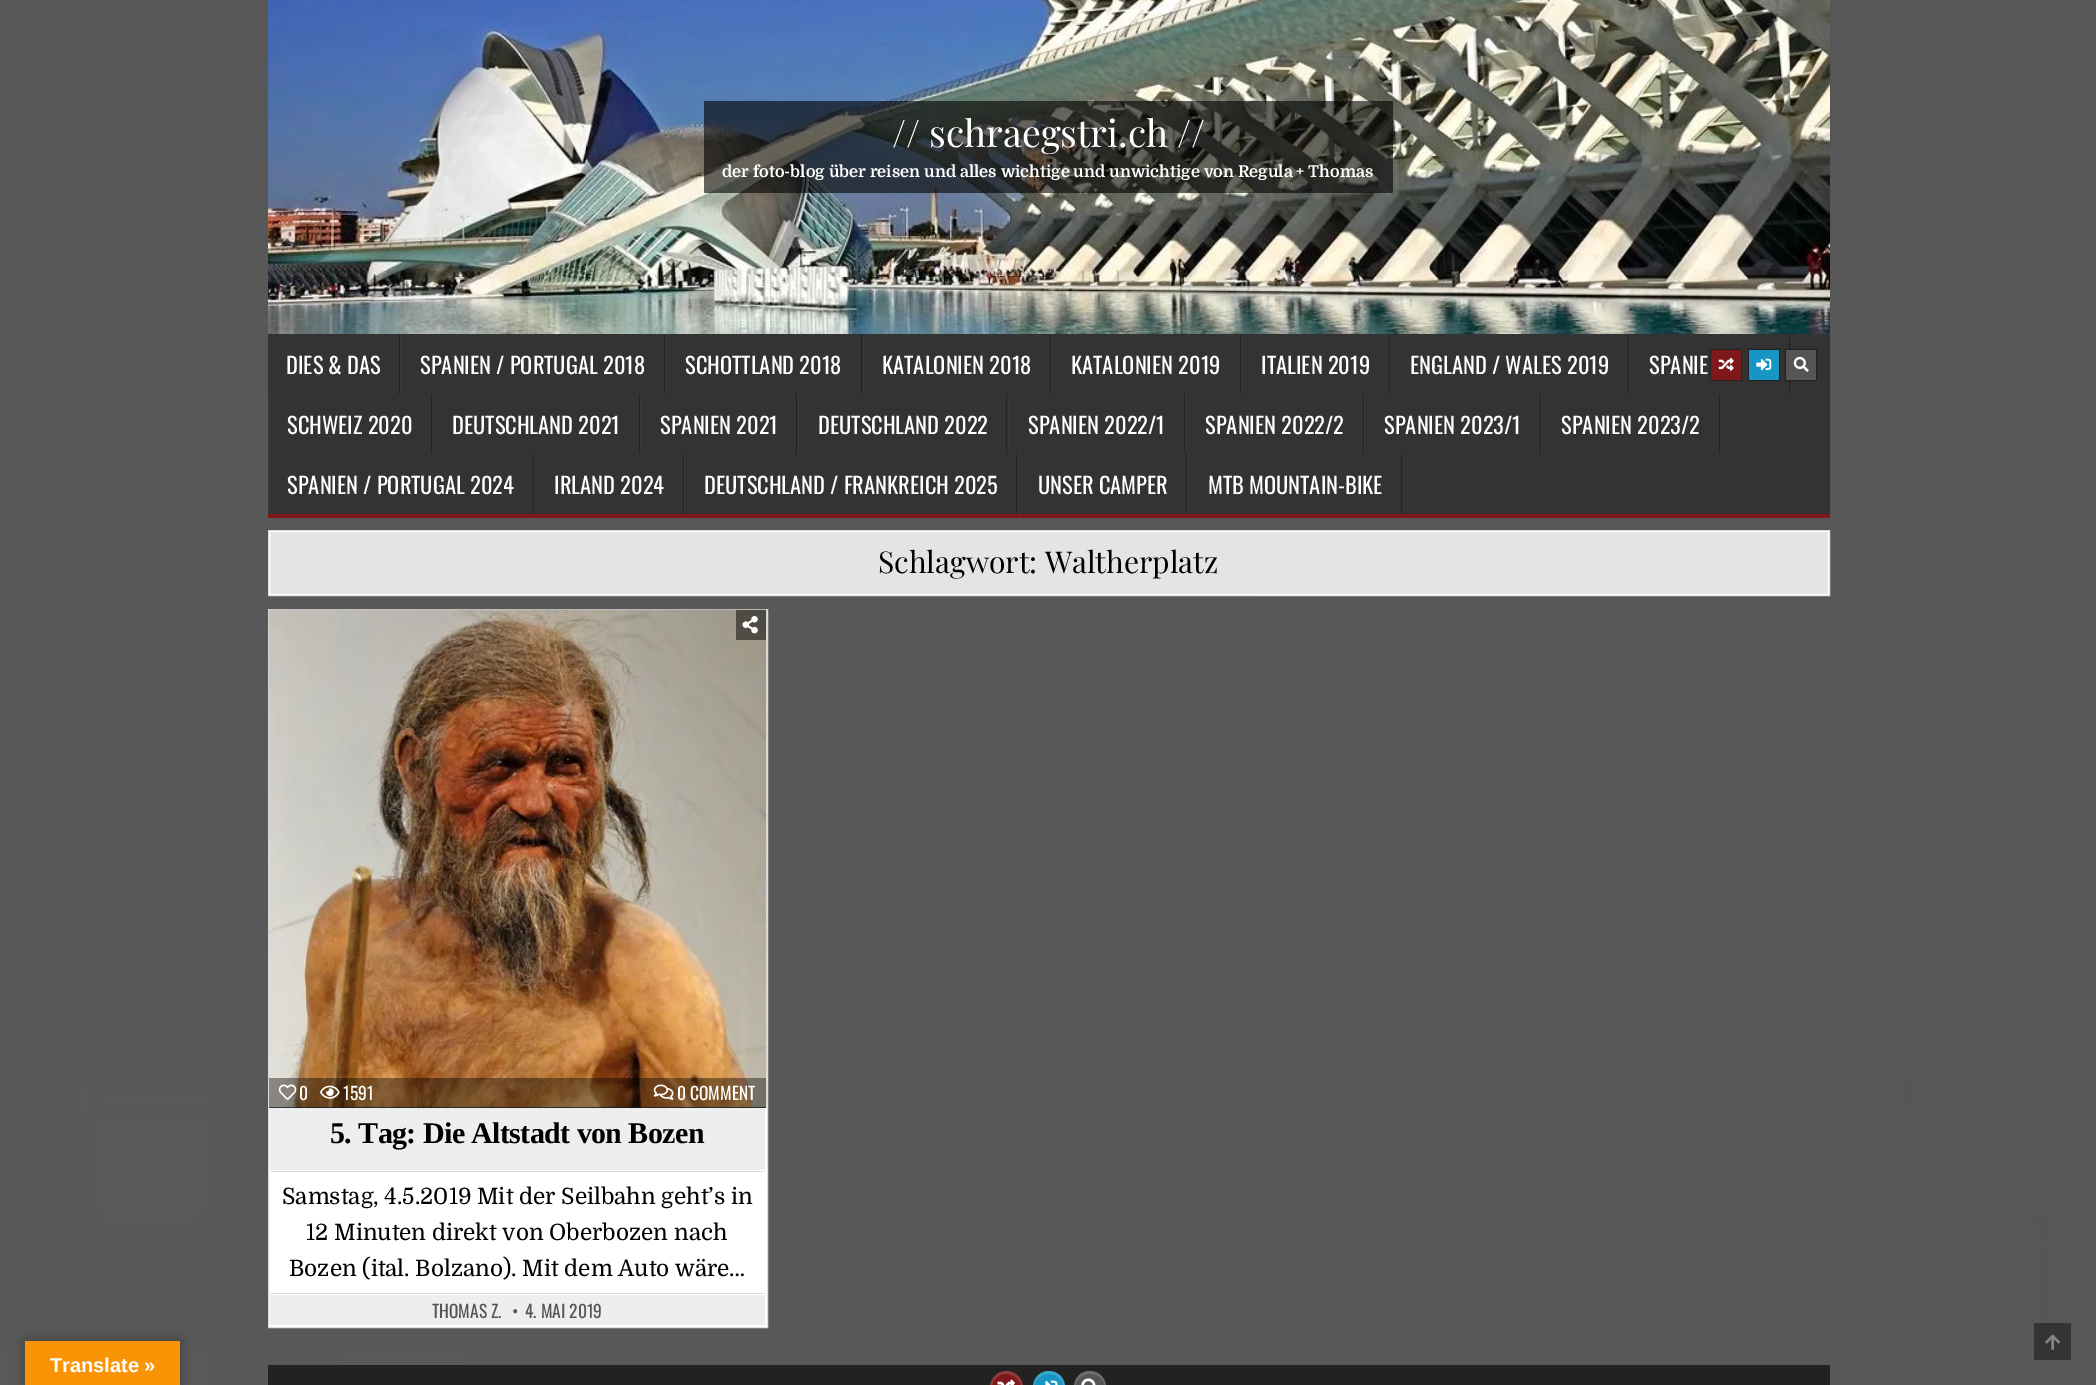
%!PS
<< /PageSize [2096 1385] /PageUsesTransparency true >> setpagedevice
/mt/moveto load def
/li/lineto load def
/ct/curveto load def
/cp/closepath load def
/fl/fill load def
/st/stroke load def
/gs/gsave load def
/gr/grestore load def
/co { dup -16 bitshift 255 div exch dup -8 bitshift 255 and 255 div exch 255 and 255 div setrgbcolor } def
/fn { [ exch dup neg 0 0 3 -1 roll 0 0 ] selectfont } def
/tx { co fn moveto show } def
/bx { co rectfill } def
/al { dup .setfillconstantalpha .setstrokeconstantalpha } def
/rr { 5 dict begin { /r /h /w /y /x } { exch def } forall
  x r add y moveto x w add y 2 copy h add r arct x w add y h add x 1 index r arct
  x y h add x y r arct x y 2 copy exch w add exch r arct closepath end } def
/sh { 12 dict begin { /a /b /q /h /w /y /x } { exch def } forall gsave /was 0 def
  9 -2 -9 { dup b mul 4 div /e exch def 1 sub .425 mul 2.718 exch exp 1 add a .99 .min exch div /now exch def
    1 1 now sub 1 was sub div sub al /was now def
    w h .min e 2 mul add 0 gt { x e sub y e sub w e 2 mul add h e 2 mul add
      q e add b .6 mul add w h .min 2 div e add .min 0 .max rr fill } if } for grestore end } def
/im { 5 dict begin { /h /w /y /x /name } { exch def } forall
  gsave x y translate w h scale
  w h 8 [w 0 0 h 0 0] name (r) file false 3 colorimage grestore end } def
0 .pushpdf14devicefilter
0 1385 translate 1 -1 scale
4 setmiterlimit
0 0 2096 1385 16#FFFFFF bx
(media/1.raw) 0 0 2096 1385 im
(media/2.raw) 268 0 1562 334 im
0.6 al
704 101 689 92 16#000000 bx
1 al
268 334 1562 180 16#333333 bx
268 514 1562 4 16#7F181B bx
399 334 1 60 16#222222 bx
664 334 1 60 16#222222 bx
400 334 1 60 16#383838 bx
861 334 1 60 16#222222 bx
665 334 1 60 16#383838 bx
1050 334 1 60 16#222222 bx
863 334 1 60 16#383838 bx
1240 334 1 60 16#222222 bx
1051 334 1 60 16#383838 bx
1389 334 1 60 16#222222 bx
1241 334 1 60 16#383838 bx
1628 334 1 60 16#222222 bx
1390 334 1 60 16#383838 bx
1789 334 1 60 16#222222 bx
1629 334 1 60 16#383838 bx
431 394 1 60 16#222222 bx
268 394 1 120 16#383838 bx
639 394 1 60 16#222222 bx
433 394 1 60 16#383838 bx
796 394 1 60 16#222222 bx
640 394 1 60 16#383838 bx
1006 394 1 60 16#222222 bx
798 394 1 60 16#383838 bx
1184 394 1 60 16#222222 bx
1008 394 1 60 16#383838 bx
1363 394 1 60 16#222222 bx
1185 394 1 60 16#383838 bx
1540 394 1 60 16#222222 bx
1364 394 1 60 16#383838 bx
1719 394 1 60 16#222222 bx
1541 394 1 60 16#383838 bx
533 454 1 60 16#222222 bx
683 454 1 60 16#222222 bx
534 454 1 60 16#383838 bx
1016 454 1 60 16#222222 bx
684 454 1 60 16#383838 bx
1186 454 1 60 16#222222 bx
1018 454 1 60 16#383838 bx
1401 454 1 60 16#222222 bx
1188 454 1 60 16#383838 bx
16#000000 co
1711 350 30 30 0 1 1 sh
1711 350 30 30 16#7F181B bx
(media/3.raw) 1718 357 16 14 im
16#000000 co
1749 350 30 30 0 1 1 sh
1749 350 30 30 16#1796C6 bx
(media/4.raw) 1756 358 16 13 im
16#000000 co
1786 350 30 30 0 1 1 sh
1786 350 30 30 16#555555 bx
(media/5.raw) 1793 356 16 16 im
270 532 1558 62 16#E4E4E4 bx
16#DDDDDD co
268.5 530.5 1561 65 rectstroke
16#FFFFFF co
269.5 531.5 1559 63 rectstroke
268.5 609.5 mt 767.5 609.5 li 767.5 1327.5 li 268.5 1327.5 li cp gs fl gr
16#DDDDDD co
st
269 1107 497 1 16#1E2B34 bx
(media/6.raw) 269 609 498 499 im
(media/7.raw) 268 609 499 499 im
0.5 al
736 610 30 30 16#000000 bx
1 al
(media/8.raw) 742 616 16 18 im
0.4 al
269 1078 497 30 16#000000 bx
1 al
(media/9.raw) 278 1084 19 16 im
(media/10.raw) 320 1085 20 14 im
(media/11.raw) 653 1084 21 16 im
270 1108 495 62 16#EEEEEE bx
270 1171 495 1 16#DDDDDD bx
270 1295 495 30 16#EEEEEE bx
270 1293 495 1 16#DDDDDD bx
2034 1323 37 37 16#343434 bx
(media/12.raw) 2045 1334 15 16 im
16#000000 co
25 1341 155 44 0 5.5 .3 sh
25 1341 155 44 16#F89406 bx
268 1365 1562 20 16#222222 bx
16#7F181B co
990 1371 33 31 16.5 rr fl
0.14 al
16#FFFFFF co
1006 1374 mt 1026 1374 1026 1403.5 1006.5 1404 ct 1015.5 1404 1023 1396.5 1023 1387.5 ct 1023 1383 1021 1379 1018 1376 ct 1015 1373 1011 1371 1006.5 1371 ct 990.5 1371 984 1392 997 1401 ct 987.5 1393.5 990.5 1374 1006 1374 ct cp fl
1 al
(media/13.raw) 997 1379 18 6 im
16#1796C6 co
1033 1371 32 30 16 rr fl
0.14 al
16#FFFFFF co
1049 1374 mt 1066 1374 1068 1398.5 1054 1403 ct 1069.5 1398 1068.5 1374.5 1052 1371.5 ct 1048 1370.5 1043.5 1371.5 1040 1373.5 ct 1035.5 1377 1033.5 1381.5 1033 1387 ct 1032.5 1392 1035 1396.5 1038.5 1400 ct 1030 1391.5 1033.5 1374 1049 1374 ct cp fl
1 al
(media/14.raw) 1045 1380 13 5 im
16#555555 co
1074 1371 32 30 16 rr fl
0.14 al
16#FFFFFF co
1090 1374 mt 1105.5 1374 1109 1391.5 1100.5 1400 ct 1111.5 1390.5 1105 1371 1090 1371 ct 1087 1371 1083.5 1372 1081 1373.5 ct 1077.5 1376 1075 1379.5 1074.5 1384 ct 1073 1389.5 1075 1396 1079.5 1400 ct 1071 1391.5 1074.5 1374 1090 1374 ct cp fl
1 al
(media/15.raw) 1081 1378 15 7 im
(// schraegstri.ch //) 892 147 /PlayfairDisplay-Regular 37.5 16#FFFFFF tx
(der foto-blog über reisen und alles wichtige und unwichtige von Regula + Thomas) 722 177 /Domine-Bold 16.25 16#FFFFFF tx
(DIES & DAS) 286 374 /Oswald-Regular 22.5 16#FFFFFF tx
(SPANIEN / PORTUGAL 2018) 420 374 /Oswald-Regular 22.5 16#FFFFFF tx
(SCHOTTLAND 2018) 685 374 /Oswald-Regular 22.5 16#FFFFFF tx
(KATALONIEN 2018) 882 374 /Oswald-Regular 22.5 16#FFFFFF tx
(KATALONIEN 2019) 1071 374 /Oswald-Regular 22.5 16#FFFFFF tx
(ITALIEN 2019) 1261 374 /Oswald-Regular 22.5 16#FFFFFF tx
(ENGLAND / WALES 2019) 1410 374 /Oswald-Regular 22.5 16#FFFFFF tx
(SPANIE) 1649 374 /Oswald-Regular 22.5 16#FFFFFF tx
(SCHWEIZ 2020) 287 434 /Oswald-Regular 22.5 16#FFFFFF tx
(DEUTSCHLAND 2021) 452 434 /Oswald-Regular 22.5 16#FFFFFF tx
(SPANIEN 2021) 660 434 /Oswald-Regular 22.5 16#FFFFFF tx
(DEUTSCHLAND 2022) 818 434 /Oswald-Regular 22.5 16#FFFFFF tx
(SPANIEN 2022/1) 1028 434 /Oswald-Regular 22.5 16#FFFFFF tx
(SPANIEN 2022/2) 1205 434 /Oswald-Regular 22.5 16#FFFFFF tx
(SPANIEN 2023/1) 1384 434 /Oswald-Regular 22.5 16#FFFFFF tx
(SPANIEN 2023/2) 1561 434 /Oswald-Regular 22.5 16#FFFFFF tx
(SPANIEN / PORTUGAL 2024) 287 494 /Oswald-Regular 22.5 16#FFFFFF tx
(IRLAND 2024) 554 494 /Oswald-Regular 22.5 16#FFFFFF tx
(DEUTSCHLAND / FRANKREICH 2025) 704 494 /Oswald-Regular 22.5 16#FFFFFF tx
(UNSER CAMPER) 1038 494 /Oswald-Regular 22.5 16#FFFFFF tx
(MTB MOUNTAIN-BIKE) 1208 494 /Oswald-Regular 22.5 16#FFFFFF tx
(Schlagwort: Waltherplatz) 878 573 /PlayfairDisplay-Regular 30 16#000000 tx
(0) 299 1100 /Oswald-Regular 17.5 16#FFFFFF tx
(1591) 343 1100 /Oswald-Regular 17.5 16#FFFFFF tx
(0 COMMENT) 677 1100 /Oswald-Regular 17.5 16#FFFFFF tx
/LiberationSerif-Bold 30 fn
16#000000 co
330 1143 mt -.6 0 (5. Tag: Die Altstadt von Bozen) ashow
(Samstag, 4.5.2019 Mit der Seilbahn geht’s in) 282 1204 /Domine-Regular 22.5 16#000000 tx
(12 Minuten direkt von Oberbozen nach) 306 1240 /Domine-Regular 22.5 16#000000 tx
(Bozen \(ital. Bolzano\). Mit dem Auto wäre…) 289 1276 /Domine-Regular 22.5 16#000000 tx
(THOMAS Z.) 432 1318 /Oswald-Regular 17.5 16#555555 tx
(•) 512 1318 /Oswald-Regular 17.5 16#555555 tx
(4. MAI 2019) 525 1318 /Oswald-Regular 17.5 16#555555 tx
(Translate ») 50 1372 /LiberationSans-Bold 20 16#FFFFFF tx
.poppdf14devicefilter showpage
